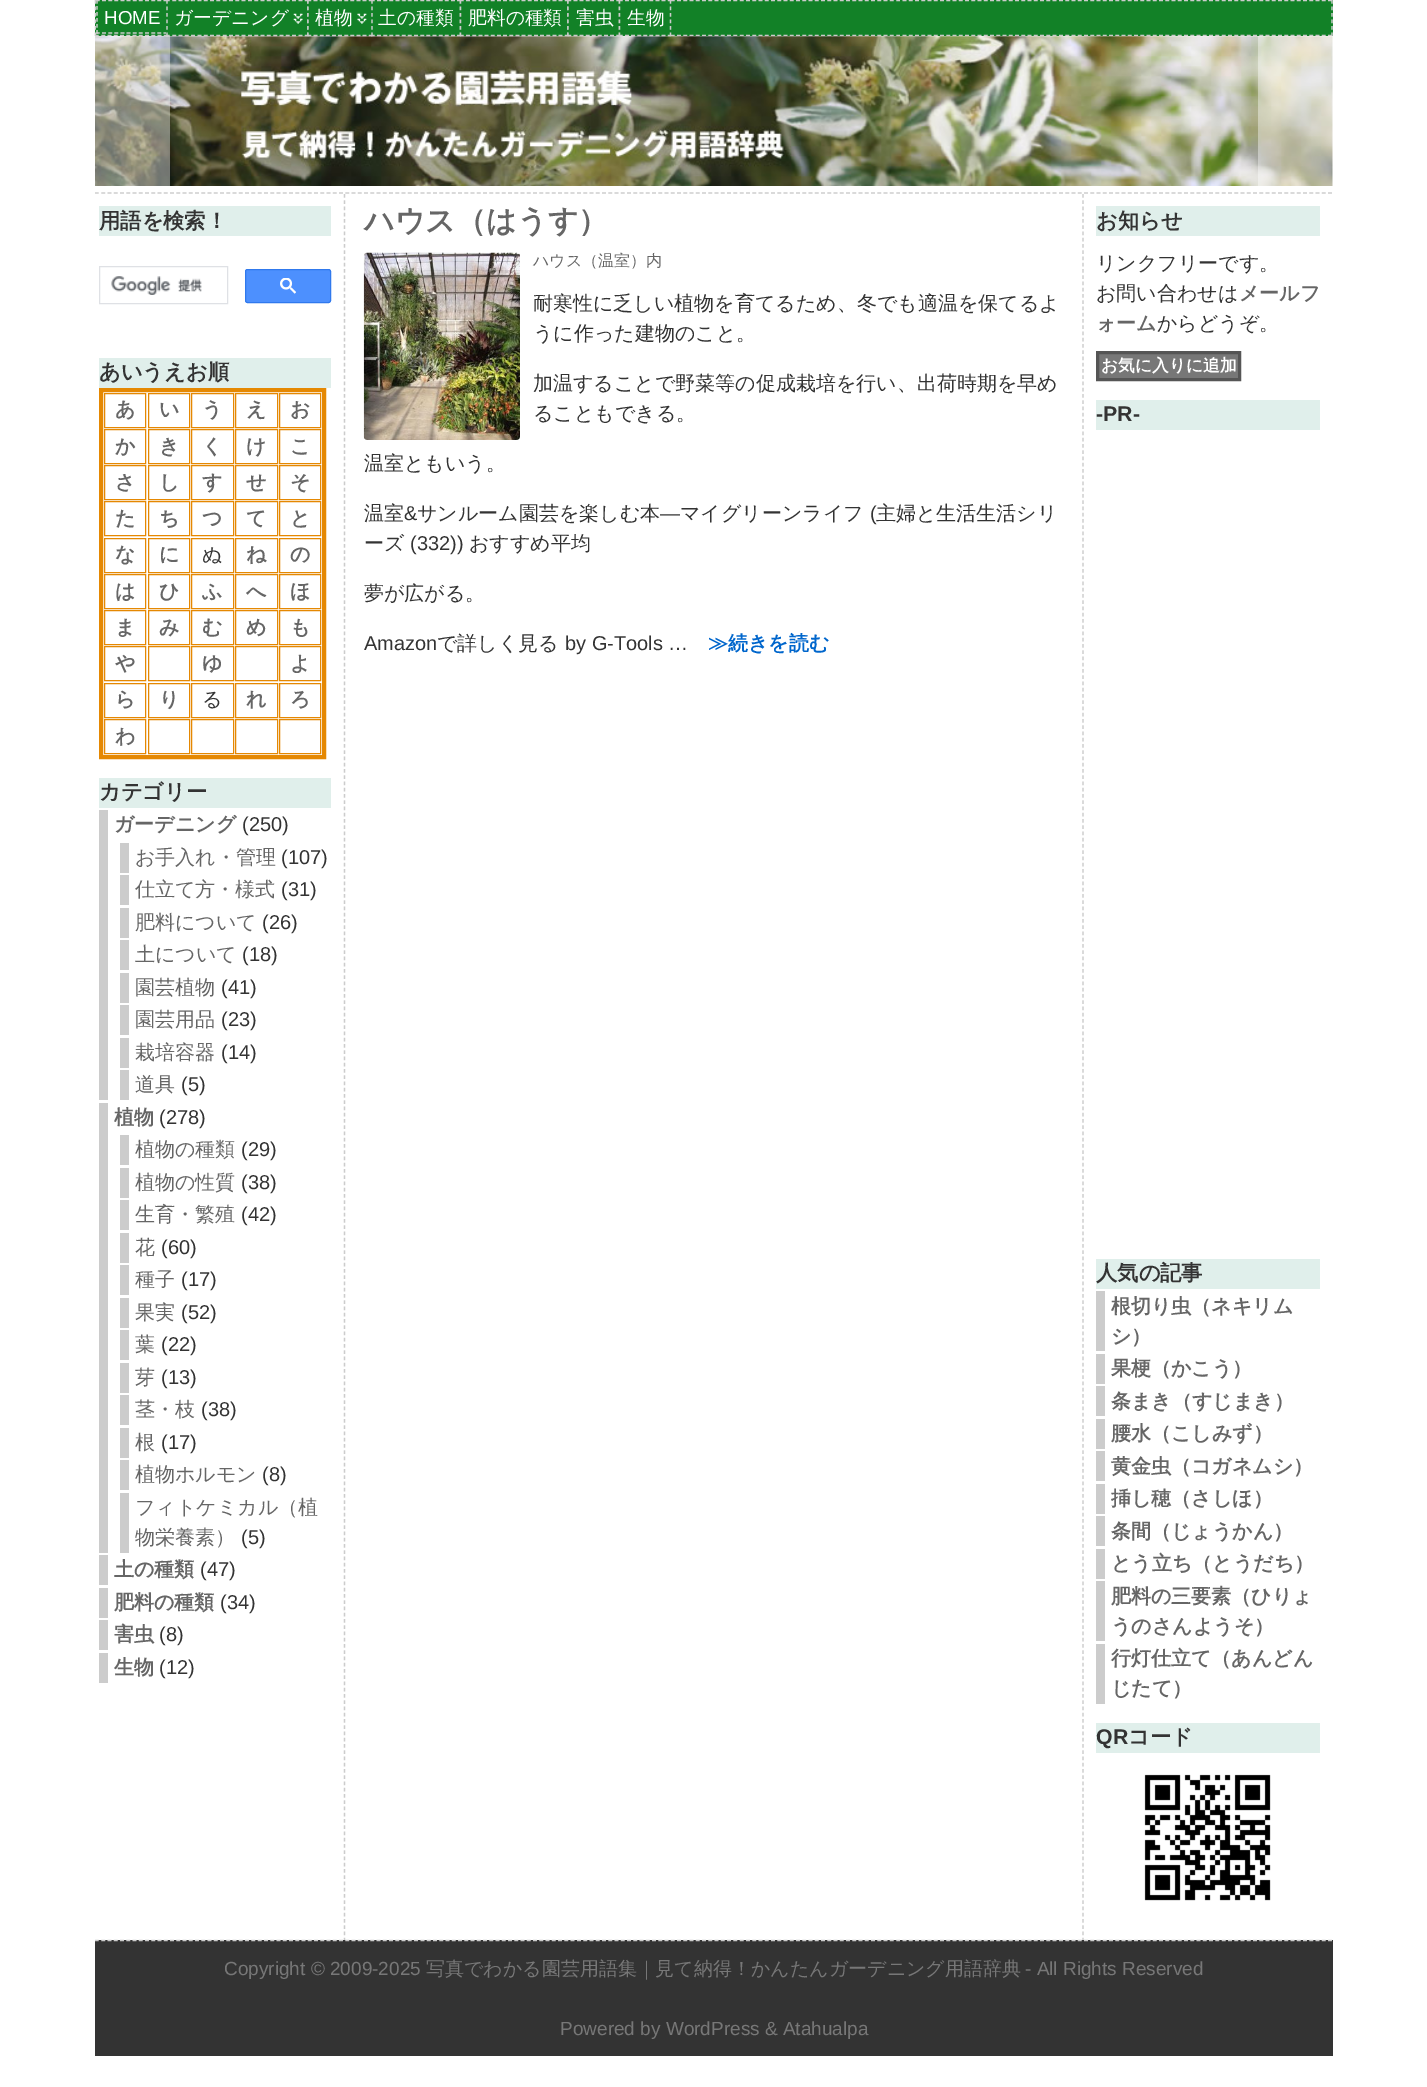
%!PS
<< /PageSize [1427 2087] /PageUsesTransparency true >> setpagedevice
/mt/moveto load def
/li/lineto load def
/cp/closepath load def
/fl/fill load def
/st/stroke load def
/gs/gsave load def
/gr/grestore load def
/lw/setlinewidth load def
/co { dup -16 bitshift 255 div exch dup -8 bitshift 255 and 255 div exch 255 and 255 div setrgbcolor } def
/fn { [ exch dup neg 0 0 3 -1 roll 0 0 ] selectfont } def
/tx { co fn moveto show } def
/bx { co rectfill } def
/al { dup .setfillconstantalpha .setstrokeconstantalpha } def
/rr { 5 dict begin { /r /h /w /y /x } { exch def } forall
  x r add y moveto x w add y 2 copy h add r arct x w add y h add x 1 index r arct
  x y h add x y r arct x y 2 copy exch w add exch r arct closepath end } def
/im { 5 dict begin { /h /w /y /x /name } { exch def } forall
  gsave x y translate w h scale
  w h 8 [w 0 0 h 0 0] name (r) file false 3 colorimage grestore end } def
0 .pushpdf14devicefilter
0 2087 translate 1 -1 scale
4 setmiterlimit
0 0 1427 2087 16#FFFFFF bx
95 0 1238 36 16#128127 bx
16#CCCCCC co
1.2 lw
[3.75 2.51] 0 setdash
95 .5 mt 1332.5 .5 li st
[3.75 2.75] 0 setdash
1332 0 mt 1332 36 li st
[3.75 2.51] 0 setdash
95 35.5 mt 1332.5 35.5 li st
[3.75 2.75] 0 setdash
95.5 0 mt 95.5 36 li st
96 0 70 34 16#128127 bx
16#CCCCCC co
[3.75 2.39] 0 setdash
96 .5 mt 167.5 .5 li st
96 33 mt 167.5 33 li st
[3.75 2.25] 0 setdash
97 0 mt 97 34 li st
166 0 142 36 16#128127 bx
(media/1.raw) 293 13 10 11 im
16#CCCCCC co
[3.75 2.56] 0 setdash
166 .5 mt 309 .5 li st
[3.75 2.75] 0 setdash
308 0 mt 308 36 li st
(media/3.raw) 95 36 1238 150 im
[3.75 2.56] 0 setdash
166 35.5 mt 309 35.5 li st
[3.75 2.75] 0 setdash
167 0 mt 167 36 li st
308 0 63 36 16#128127 bx
(media/2.raw) 357 13 10 11 im
16#CCCCCC co
[3.75 2.38] 0 setdash
307.5 .5 mt 372.5 .5 li st
307.5 35.5 mt 372.5 35.5 li st
[3.75 2.75] 0 setdash
308 0 mt 308 36 li st
371 0 89 36 16#128127 bx
16#CCCCCC co
[3.75 2.41] 0 setdash
371 .5 mt 461 .5 li st
[3.75 2.75] 0 setdash
460.5 0 mt 460.5 36 li st
[3.75 2.41] 0 setdash
371 35.5 mt 461 35.5 li st
[3.75 2.75] 0 setdash
372 0 mt 372 36 li st
460 0 108 36 16#128127 bx
16#CCCCCC co
[3.75 2.42] 0 setdash
460 .5 mt 569 .5 li st
[3.75 2.75] 0 setdash
568 0 mt 568 36 li st
[3.75 2.42] 0 setdash
460 35.5 mt 569 35.5 li st
[3.75 2.75] 0 setdash
460.5 0 mt 460.5 36 li st
568 0 51 36 16#128127 bx
16#CCCCCC co
[3.75 2.35] 0 setdash
567.5 .5 mt 620 .5 li st
[3.75 2.75] 0 setdash
619.5 0 mt 619.5 36 li st
[3.75 2.35] 0 setdash
567.5 35.5 mt 620 35.5 li st
[3.75 2.75] 0 setdash
568 0 mt 568 36 li st
619 0 52 36 16#128127 bx
16#CCCCCC co
[3.75 2.35] 0 setdash
619 .5 mt 671 .5 li st
[3.75 2.75] 0 setdash
670.5 0 mt 670.5 36 li st
[3.75 2.35] 0 setdash
619 35.5 mt 671 35.5 li st
[3.75 2.75] 0 setdash
619.5 0 mt 619.5 36 li st
0.4 al
95 36 75 150 16#FFFFFF bx
1258 36 75 150 16#FFFFFF bx
1 al
16#CCCCCC co
[3.75 2.51] 0 setdash
95 193 mt 1332.5 193 li st
[3.75 2.5] 0 setdash
344.5 194 mt 344.5 1940 li st
99 206 232 30 16#E0EFEB bx
16#DFE1E5 co
1 lw
[] 0 setdash
99.5 266.5 128 37 rectstroke
(media/4.raw) 111 276 91 19 im
16#4D90FE co
245.5 269.5 85 33 2 rr gs fl gr
16#3079ED co
st
(media/5.raw) 280 278 16 16 im
99 358 232 30 16#E0EFEB bx
16#E58802 co
4 lw
101 390 223 367 rectstroke
1 lw
104.5 393.5 41 34 rectstroke
148.5 393.5 41 34 rectstroke
191.5 393.5 42 34 rectstroke
235.5 393.5 42 34 rectstroke
279.5 393.5 41 34 rectstroke
104.5 429.5 41 34 rectstroke
148.5 429.5 41 34 rectstroke
191.5 429.5 42 34 rectstroke
235.5 429.5 42 34 rectstroke
279.5 429.5 41 34 rectstroke
104.5 465.5 41 34 rectstroke
148.5 465.5 41 34 rectstroke
191.5 465.5 42 34 rectstroke
235.5 465.5 42 34 rectstroke
279.5 465.5 41 34 rectstroke
104.5 501.5 41 34 rectstroke
148.5 501.5 41 34 rectstroke
191.5 501.5 42 34 rectstroke
235.5 501.5 42 34 rectstroke
279.5 501.5 41 34 rectstroke
104.5 538.5 41 34 rectstroke
148.5 538.5 41 34 rectstroke
191.5 538.5 42 34 rectstroke
235.5 538.5 42 34 rectstroke
279.5 538.5 41 34 rectstroke
104.5 574.5 41 34 rectstroke
148.5 574.5 41 34 rectstroke
191.5 574.5 42 34 rectstroke
235.5 574.5 42 34 rectstroke
279.5 574.5 41 34 rectstroke
104.5 610.5 41 34 rectstroke
148.5 610.5 41 34 rectstroke
191.5 610.5 42 34 rectstroke
235.5 610.5 42 34 rectstroke
279.5 610.5 41 34 rectstroke
104.5 646.5 41 34 rectstroke
148.5 646.5 41 34 rectstroke
191.5 646.5 42 34 rectstroke
235.5 646.5 42 34 rectstroke
279.5 646.5 41 34 rectstroke
104.5 683.5 41 34 rectstroke
148.5 683.5 41 34 rectstroke
191.5 683.5 42 34 rectstroke
235.5 683.5 42 34 rectstroke
279.5 683.5 41 34 rectstroke
104.5 719.5 41 34 rectstroke
148.5 719.5 41 34 rectstroke
191.5 719.5 42 34 rectstroke
235.5 719.5 42 34 rectstroke
279.5 719.5 41 34 rectstroke
99 778 232 30 16#E0EFEB bx
99 810 9 290 16#CCCCCC bx
120 843 9 30 16#CCCCCC bx
120 875 9 30 16#CCCCCC bx
120 908 9 30 16#CCCCCC bx
120 940 9 30 16#CCCCCC bx
120 973 9 30 16#CCCCCC bx
120 1005 9 30 16#CCCCCC bx
120 1038 9 30 16#CCCCCC bx
120 1070 9 30 16#CCCCCC bx
99 1103 9 450 16#CCCCCC bx
120 1135 9 30 16#CCCCCC bx
120 1168 9 30 16#CCCCCC bx
120 1200 9 30 16#CCCCCC bx
120 1233 9 30 16#CCCCCC bx
120 1265 9 30 16#CCCCCC bx
120 1298 9 30 16#CCCCCC bx
120 1330 9 30 16#CCCCCC bx
120 1363 9 30 16#CCCCCC bx
120 1395 9 30 16#CCCCCC bx
120 1428 9 30 16#CCCCCC bx
120 1460 9 30 16#CCCCCC bx
120 1493 9 60 16#CCCCCC bx
99 1555 9 30 16#CCCCCC bx
99 1588 9 30 16#CCCCCC bx
99 1620 9 30 16#CCCCCC bx
99 1653 9 30 16#CCCCCC bx
(media/6.raw) 363 252 157 188 im
1.2 lw
[3.75 2.5] 0 setdash
1083 194 mt 1083 1940 li st
1096 206 224 30 16#E0EFEB bx
16#777777 co
1097.5 352.5 mt 1239.5 352.5 li 1239.5 379.5 li 1097.5 379.5 li cp gs fl gr
16#555555 co
3 lw
[] 0 setdash
st
1096 400 224 30 16#E0EFEB bx
1096 1259 224 30 16#E0EFEB bx
1096 1291 9 60 16#CCCCCC bx
1096 1354 9 30 16#CCCCCC bx
1096 1386 9 30 16#CCCCCC bx
1096 1419 9 30 16#CCCCCC bx
1096 1451 9 30 16#CCCCCC bx
1096 1484 9 30 16#CCCCCC bx
1096 1516 9 30 16#CCCCCC bx
1096 1549 9 30 16#CCCCCC bx
1096 1581 9 60 16#CCCCCC bx
1096 1644 9 60 16#CCCCCC bx
1096 1723 224 30 16#E0EFEB bx
(media/7.raw) 1144 1774 127 127 im
95 1940 1238 116 16#333333 bx
16#CCCCCC co
1.2 lw
[3.75 2.51] 0 setdash
95 1940.5 mt 1332.5 1940.5 li st
(HOME) 104 24 /LiberationSans-Regular 18.75 16#FFFFFF tx
(ガーデニング) 174 24 /WenQuanYiZenHei-Medium 18.75 16#FFFFFF tx
(植物) 315 24 /WenQuanYiZenHei-Medium 18.75 16#FFFFFF tx
(土の種類) 378 24 /WenQuanYiZenHei-Medium 18.75 16#FFFFFF tx
(肥料の種類) 468 24 /WenQuanYiZenHei-Medium 18.75 16#FFFFFF tx
(害虫) 576 24 /WenQuanYiZenHei-Medium 18.75 16#FFFFFF tx
(生物) 627 24 /WenQuanYiZenHei-Medium 18.75 16#FFFFFF tx
(用語を検索！) 99 228 /WenQuanYiZenHei-Bold 21.25 16#333333 tx
(あいうえお順) 99 379 /WenQuanYiZenHei-Bold 21.25 16#333333 tx
(あ) 115 416 /WenQuanYiZenHei-Bold 20 16#666666 tx
(い) 159 416 /WenQuanYiZenHei-Bold 20 16#666666 tx
(う) 202 416 /WenQuanYiZenHei-Bold 20 16#666666 tx
(え) 246 416 /WenQuanYiZenHei-Bold 20 16#666666 tx
(お) 290 416 /WenQuanYiZenHei-Bold 20 16#666666 tx
(か) 115 453 /WenQuanYiZenHei-Bold 20 16#666666 tx
(き) 159 453 /WenQuanYiZenHei-Bold 20 16#666666 tx
(く) 202 453 /WenQuanYiZenHei-Bold 20 16#666666 tx
(け) 246 453 /WenQuanYiZenHei-Bold 20 16#666666 tx
(こ) 290 453 /WenQuanYiZenHei-Bold 20 16#666666 tx
(さ) 115 489 /WenQuanYiZenHei-Bold 20 16#666666 tx
(し) 159 489 /WenQuanYiZenHei-Bold 20 16#666666 tx
(す) 202 489 /WenQuanYiZenHei-Bold 20 16#666666 tx
(せ) 246 489 /WenQuanYiZenHei-Bold 20 16#666666 tx
(そ) 290 489 /WenQuanYiZenHei-Bold 20 16#666666 tx
(た) 115 525 /WenQuanYiZenHei-Bold 20 16#666666 tx
(ち) 159 525 /WenQuanYiZenHei-Bold 20 16#666666 tx
(つ) 202 525 /WenQuanYiZenHei-Bold 20 16#666666 tx
(て) 246 525 /WenQuanYiZenHei-Bold 20 16#666666 tx
(と) 290 525 /WenQuanYiZenHei-Bold 20 16#666666 tx
(な) 115 561 /WenQuanYiZenHei-Bold 20 16#666666 tx
(に) 159 561 /WenQuanYiZenHei-Bold 20 16#666666 tx
(ぬ) 202 561 /WenQuanYiZenHei-Medium 20 16#333333 tx
(ね) 246 561 /WenQuanYiZenHei-Bold 20 16#666666 tx
(の) 290 561 /WenQuanYiZenHei-Bold 20 16#666666 tx
(は) 115 598 /WenQuanYiZenHei-Bold 20 16#666666 tx
(ひ) 159 598 /WenQuanYiZenHei-Bold 20 16#666666 tx
(ふ) 202 598 /WenQuanYiZenHei-Bold 20 16#666666 tx
(へ) 246 598 /WenQuanYiZenHei-Bold 20 16#666666 tx
(ほ) 290 598 /WenQuanYiZenHei-Bold 20 16#666666 tx
(ま) 115 634 /WenQuanYiZenHei-Bold 20 16#666666 tx
(み) 159 634 /WenQuanYiZenHei-Bold 20 16#666666 tx
(む) 202 634 /WenQuanYiZenHei-Bold 20 16#666666 tx
(め) 246 634 /WenQuanYiZenHei-Bold 20 16#666666 tx
(も) 290 634 /WenQuanYiZenHei-Bold 20 16#666666 tx
(や) 115 670 /WenQuanYiZenHei-Bold 20 16#666666 tx
(ゆ) 202 670 /WenQuanYiZenHei-Bold 20 16#666666 tx
(よ) 290 670 /WenQuanYiZenHei-Bold 20 16#666666 tx
(ら) 115 706 /WenQuanYiZenHei-Bold 20 16#666666 tx
(り) 159 706 /WenQuanYiZenHei-Bold 20 16#666666 tx
(る) 202 706 /WenQuanYiZenHei-Medium 20 16#333333 tx
(れ) 246 706 /WenQuanYiZenHei-Bold 20 16#666666 tx
(ろ) 290 706 /WenQuanYiZenHei-Bold 20 16#666666 tx
(わ) 115 743 /WenQuanYiZenHei-Bold 20 16#666666 tx
(カテゴリー) 99 799 /WenQuanYiZenHei-Bold 21.25 16#333333 tx
(ガーデニング) 114 831 /WenQuanYiZenHei-Bold 20 16#666666 tx
(\(250\)) 242 831 /LiberationSans-Regular 20 16#333333 tx
(お手入れ・管理) 135 864 /WenQuanYiZenHei-Medium 20 16#666666 tx
(\(107\)) 281 864 /LiberationSans-Regular 20 16#333333 tx
(仕立て方・様式) 135 896 /WenQuanYiZenHei-Medium 20 16#666666 tx
(\(31\)) 281 896 /LiberationSans-Regular 20 16#333333 tx
(肥料について) 135 929 /WenQuanYiZenHei-Medium 20 16#666666 tx
(\(26\)) 262 929 /LiberationSans-Regular 20 16#333333 tx
(土について) 135 961 /WenQuanYiZenHei-Medium 20 16#666666 tx
(\(18\)) 242 961 /LiberationSans-Regular 20 16#333333 tx
(園芸植物) 135 994 /WenQuanYiZenHei-Medium 20 16#666666 tx
(\(41\)) 221 994 /LiberationSans-Regular 20 16#333333 tx
(園芸用品) 135 1026 /WenQuanYiZenHei-Medium 20 16#666666 tx
(\(23\)) 221 1026 /LiberationSans-Regular 20 16#333333 tx
(栽培容器) 135 1059 /WenQuanYiZenHei-Medium 20 16#666666 tx
(\(14\)) 221 1059 /LiberationSans-Regular 20 16#333333 tx
(道具) 135 1091 /WenQuanYiZenHei-Medium 20 16#666666 tx
(\(5\)) 181 1091 /LiberationSans-Regular 20 16#333333 tx
(植物) 114 1124 /WenQuanYiZenHei-Bold 20 16#666666 tx
(\(278\)) 159 1124 /LiberationSans-Regular 20 16#333333 tx
(植物の種類) 135 1156 /WenQuanYiZenHei-Medium 20 16#666666 tx
(\(29\)) 241 1156 /LiberationSans-Regular 20 16#333333 tx
(植物の性質) 135 1189 /WenQuanYiZenHei-Medium 20 16#666666 tx
(\(38\)) 241 1189 /LiberationSans-Regular 20 16#333333 tx
(生育・繁殖) 135 1221 /WenQuanYiZenHei-Medium 20 16#666666 tx
(\(42\)) 241 1221 /LiberationSans-Regular 20 16#333333 tx
(花) 135 1254 /WenQuanYiZenHei-Medium 20 16#666666 tx
(\(60\)) 161 1254 /LiberationSans-Regular 20 16#333333 tx
(種子) 135 1286 /WenQuanYiZenHei-Medium 20 16#666666 tx
(\(17\)) 181 1286 /LiberationSans-Regular 20 16#333333 tx
(果実) 135 1319 /WenQuanYiZenHei-Medium 20 16#666666 tx
(\(52\)) 181 1319 /LiberationSans-Regular 20 16#333333 tx
(葉) 135 1351 /WenQuanYiZenHei-Medium 20 16#666666 tx
(\(22\)) 161 1351 /LiberationSans-Regular 20 16#333333 tx
(芽) 135 1384 /WenQuanYiZenHei-Medium 20 16#666666 tx
(\(13\)) 161 1384 /LiberationSans-Regular 20 16#333333 tx
(茎・枝) 135 1416 /WenQuanYiZenHei-Medium 20 16#666666 tx
(\(38\)) 201 1416 /LiberationSans-Regular 20 16#333333 tx
(根) 135 1449 /WenQuanYiZenHei-Medium 20 16#666666 tx
(\(17\)) 161 1449 /LiberationSans-Regular 20 16#333333 tx
(植物ホルモン) 135 1481 /WenQuanYiZenHei-Medium 20 16#666666 tx
(\(8\)) 262 1481 /LiberationSans-Regular 20 16#333333 tx
(フィトケミカル（植) 135 1514 /WenQuanYiZenHei-Medium 20 16#666666 tx
(物栄養素）) 135 1544 /WenQuanYiZenHei-Medium 20 16#666666 tx
(\(5\)) 241 1544 /LiberationSans-Regular 20 16#333333 tx
(土の種類) 114 1576 /WenQuanYiZenHei-Bold 20 16#666666 tx
(\(47\)) 200 1576 /LiberationSans-Regular 20 16#333333 tx
(肥料の種類) 114 1609 /WenQuanYiZenHei-Bold 20 16#666666 tx
(\(34\)) 220 1609 /LiberationSans-Regular 20 16#333333 tx
(害虫) 114 1641 /WenQuanYiZenHei-Bold 20 16#666666 tx
(\(8\)) 159 1641 /LiberationSans-Regular 20 16#333333 tx
(生物) 114 1674 /WenQuanYiZenHei-Bold 20 16#666666 tx
(\(12\)) 159 1674 /LiberationSans-Regular 20 16#333333 tx
(ハウス（はうす）) 364 231 /WenQuanYiZenHei-Bold 30 16#666666 tx
(ハウス（温室）内) 533 266 /WenQuanYiZenHei-Medium 16 16#666666 tx
(耐寒性に乏しい植物を育てるため、冬でも適温を保てるよ) 533 310 /WenQuanYiZenHei-Medium 20 16#333333 tx
(うに作った建物のこと。) 533 340 /WenQuanYiZenHei-Medium 20 16#333333 tx
(加温することで野菜等の促成栽培を行い、出荷時期を早め) 533 390 /WenQuanYiZenHei-Medium 20 16#333333 tx
(ることもできる。) 533 420 /WenQuanYiZenHei-Medium 20 16#333333 tx
(温室ともいう。) 364 470 /WenQuanYiZenHei-Medium 20 16#333333 tx
(温室) 364 520 /WenQuanYiZenHei-Medium 20 16#333333 tx
(&) 404 520 /LiberationSans-Regular 20 16#333333 tx
(サンルーム園芸を楽しむ本) 417 520 /WenQuanYiZenHei-Medium 20 16#333333 tx
(―) 660 520 /LiberationSans-Regular 20 16#333333 tx
(マイグリーンライフ) 680 520 /WenQuanYiZenHei-Medium 20 16#333333 tx
(\() 870 520 /LiberationSans-Regular 20 16#333333 tx
(主婦と生活生活シリ) 876 520 /WenQuanYiZenHei-Medium 20 16#333333 tx
(ーズ) 364 550 /WenQuanYiZenHei-Medium 20 16#333333 tx
(\(332\)\)) 410 550 /LiberationSans-Regular 20 16#333333 tx
(おすすめ平均) 469 550 /WenQuanYiZenHei-Medium 20 16#333333 tx
(夢が広がる。) 364 600 /WenQuanYiZenHei-Medium 20 16#333333 tx
(Amazon) 364 650 /LiberationSans-Regular 20 16#333333 tx
(で詳しく見る) 437 650 /WenQuanYiZenHei-Medium 20 16#333333 tx
(by G-Tools …) 565 650 /LiberationSans-Regular 20 16#333333 tx
(≫続きを読む) 708 650 /WenQuanYiZenHei-Bold 20 16#0066CC tx
(お知らせ) 1096 228 /WenQuanYiZenHei-Bold 21.25 16#333333 tx
(リンクフリーです。) 1096 270 /WenQuanYiZenHei-Medium 20 16#333333 tx
(お問い合わせは) 1096 300 /WenQuanYiZenHei-Medium 20 16#333333 tx
(メールフ) 1239 300 /WenQuanYiZenHei-Bold 20 16#666666 tx
(ォーム) 1096 330 /WenQuanYiZenHei-Bold 20 16#666666 tx
(からどうぞ。) 1157 330 /WenQuanYiZenHei-Medium 20 16#333333 tx
(お気に入りに追加) 1101 371 /WenQuanYiZenHei-Bold 16.75 16#FFFFFF tx
(-PR-) 1096 421 /LiberationSans-Bold 21.25 16#333333 tx
(人気の記事) 1096 1280 /WenQuanYiZenHei-Bold 21.25 16#333333 tx
(根切り虫（ネキリム) 1111 1313 /WenQuanYiZenHei-Bold 20 16#666666 tx
(シ）) 1111 1343 /WenQuanYiZenHei-Bold 20 16#666666 tx
(果梗（かこう）) 1111 1375 /WenQuanYiZenHei-Bold 20 16#666666 tx
(条まき（すじまき）) 1111 1408 /WenQuanYiZenHei-Bold 20 16#666666 tx
(腰水（こしみず）) 1111 1440 /WenQuanYiZenHei-Bold 20 16#666666 tx
(黄金虫（コガネムシ）) 1111 1473 /WenQuanYiZenHei-Bold 20 16#666666 tx
(挿し穂（さしほ）) 1111 1505 /WenQuanYiZenHei-Bold 20 16#666666 tx
(条間（じょうかん）) 1111 1538 /WenQuanYiZenHei-Bold 20 16#666666 tx
(とう立ち（とうだち）) 1111 1570 /WenQuanYiZenHei-Bold 20 16#666666 tx
(肥料の三要素（ひりょ) 1111 1603 /WenQuanYiZenHei-Bold 20 16#666666 tx
(うのさんようそ）) 1111 1633 /WenQuanYiZenHei-Bold 20 16#666666 tx
(行灯仕立て（あんどん) 1111 1665 /WenQuanYiZenHei-Bold 20 16#666666 tx
(じたて）) 1111 1695 /WenQuanYiZenHei-Bold 20 16#666666 tx
(QR) 1096 1744 /LiberationSans-Bold 21.25 16#333333 tx
(コード) 1128 1744 /WenQuanYiZenHei-Bold 21.25 16#333333 tx
(Copyright © 2009-2025) 224 1975 /LiberationSans-Regular 19 16#777777 tx
(写真でわかる園芸用語集｜見て納得！かんたんガーデニング用語辞典) 426 1975 /WenQuanYiZenHei-Medium 19 16#777777 tx
(- All Rights Reserved) 1025 1975 /LiberationSans-Regular 19 16#777777 tx
(Powered by WordPress & Atahualpa) 560 2035 /LiberationSans-Regular 19 16#777777 tx
.poppdf14devicefilter showpage
